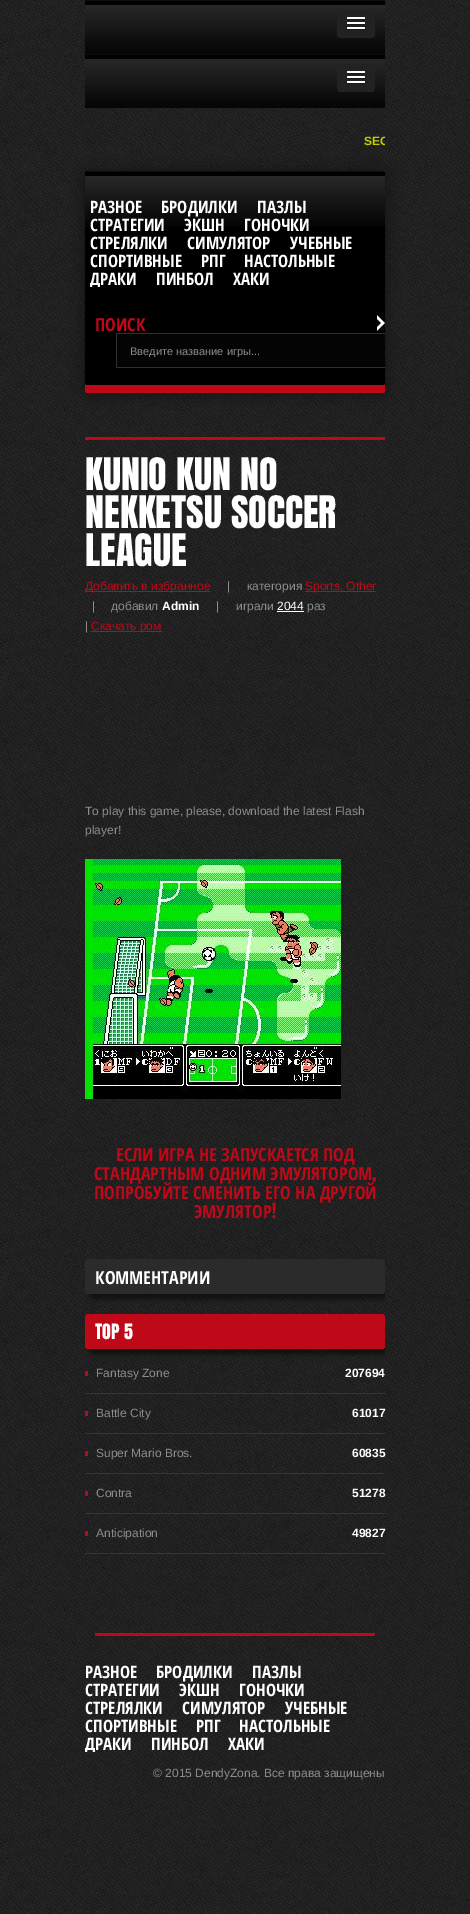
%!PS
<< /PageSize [470 1914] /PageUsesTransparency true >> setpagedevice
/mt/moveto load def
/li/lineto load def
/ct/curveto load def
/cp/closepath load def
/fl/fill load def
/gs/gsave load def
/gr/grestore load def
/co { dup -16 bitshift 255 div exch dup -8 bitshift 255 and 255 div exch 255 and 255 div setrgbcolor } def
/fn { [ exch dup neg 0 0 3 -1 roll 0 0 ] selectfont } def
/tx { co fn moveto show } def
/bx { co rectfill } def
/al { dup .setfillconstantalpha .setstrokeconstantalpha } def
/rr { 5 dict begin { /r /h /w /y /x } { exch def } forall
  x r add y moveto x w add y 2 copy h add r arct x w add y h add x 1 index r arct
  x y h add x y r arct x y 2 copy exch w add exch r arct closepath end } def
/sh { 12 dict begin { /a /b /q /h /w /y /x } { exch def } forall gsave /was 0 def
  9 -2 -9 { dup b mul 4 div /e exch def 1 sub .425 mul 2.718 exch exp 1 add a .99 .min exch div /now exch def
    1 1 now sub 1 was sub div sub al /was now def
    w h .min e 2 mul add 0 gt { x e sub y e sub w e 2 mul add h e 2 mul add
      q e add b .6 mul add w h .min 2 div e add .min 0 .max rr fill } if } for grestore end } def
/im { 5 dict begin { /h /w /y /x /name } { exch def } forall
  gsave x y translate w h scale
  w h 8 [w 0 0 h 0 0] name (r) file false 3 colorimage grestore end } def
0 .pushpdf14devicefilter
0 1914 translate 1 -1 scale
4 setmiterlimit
0 0 470 1914 16#FFFFFF bx
(media/1.raw) 0 0 470 1914 im
(media/2.raw) 85 108 300 65 im
(media/3.raw) 85 0 300 54 im
16#222222 co
337 10 38 28 4 rr fl
16#1A1A1A co
347 18.5 mt 346 20.5 350.5 20 350.5 20 ct 361.5 20 li 361.5 20 366 20.5 365 18.5 ct 364 19.5 357.5 19 356 19 ct 354.5 19 348 19.5 347 18.5 ct cp fl
16#FFFFFF co
347 17 18 2 1 rr fl
16#1A1A1A co
347 23.5 mt 346 25.5 350.5 25 350.5 25 ct 361.5 25 li 361.5 25 366 25.5 365 23.5 ct 364 24.5 357.5 24 356 24 ct 354.5 24 348 24.5 347 23.5 ct cp fl
16#FFFFFF co
347 22 18 2 1 rr fl
16#1A1A1A co
347 28.5 mt 346 30.5 350.5 30 350.5 30 ct 361.5 30 li 361.5 30 366 30.5 365 28.5 ct 364 29.5 357.5 29 356 29 ct 354.5 29 348 29.5 347 28.5 ct cp fl
16#FFFFFF co
347 27 18 2 1 rr fl
(media/3.raw) 85 54 300 54 im
16#222222 co
337 64 38 28 4 rr fl
16#1A1A1A co
347 72.5 mt 346 74.5 350.5 74 350.5 74 ct 361.5 74 li 361.5 74 366 74.5 365 72.5 ct 364 73.5 357.5 73 356 73 ct 354.5 73 348 73.5 347 72.5 ct cp fl
16#FFFFFF co
347 71 18 2 1 rr fl
16#1A1A1A co
347 77.5 mt 346 79.5 350.5 79 350.5 79 ct 361.5 79 li 361.5 79 366 79.5 365 77.5 ct 364 78.5 357.5 78 356 78 ct 354.5 78 348 78.5 347 77.5 ct cp fl
16#FFFFFF co
347 76 18 2 1 rr fl
16#1A1A1A co
347 82.5 mt 346 84.5 350.5 84 350.5 84 ct 361.5 84 li 361.5 84 366 84.5 365 82.5 ct 364 83.5 357.5 83 356 83 ct 354.5 83 348 83.5 347 82.5 ct cp fl
16#FFFFFF co
347 81 18 2 1 rr fl
16#000000 co
85 171 300 222 2 8 .45 sh
16#BF0818 co
85 171 300 222 2 rr fl
16#000000 co
85 171 300 214 2 rr fl
(media/4.raw) 85 171 300 56 im
(media/5.raw) 377 315 8 16 im
117 334 268 33 16#040404 bx
16#2F2F2F co
116 333 mt 116 368 li 385 368 li 385 367 li 117 367 li 117 334 li 385 334 li 385 333 li cp fl
85 437 300 3 16#BF0818 bx
85 591 125 1 16#BF0818 bx
305 591 71 1 16#BF0818 bx
277 611 27 1 16#FFFFFF bx
91 631 71 1 16#BF0818 bx
(media/6.raw) 85 859 256 240 im
gs
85 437 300 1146 rectclip
16#000000 co
90 1264 300 35 3 2.5 .5 sh
gr
16#2B2B2B co
85 1259 300 35 3 rr fl
gs
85 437 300 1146 rectclip
16#000000 co
90 1319 300 35 3 2.5 .5 sh
gr
16#BF0818 co
85 1314 300 35 3 rr fl
85 1393 300 1 16#363535 bx
85 1371 3 5 16#BF0818 bx
85 1433 300 1 16#363535 bx
85 1411 3 5 16#BF0818 bx
85 1473 300 1 16#363535 bx
85 1451 3 5 16#BF0818 bx
85 1513 300 1 16#363535 bx
85 1491 3 5 16#BF0818 bx
85 1553 300 1 16#363535 bx
85 1531 3 5 16#BF0818 bx
95 1633 280 3 16#BF0818 bx
gs
85 108 300 43 rectclip
(SEG) 364 145 /LiberationSans-Bold 12 16#C0CF00 tx
gr
(РАЗНОЕ) 90 213 /OpenSansCondensed-Bold 17 16#FFFFFF tx
(БРОДИЛКИ) 161 213 /OpenSansCondensed-Bold 17 16#FFFFFF tx
(ПАЗЛЫ) 257 213 /OpenSansCondensed-Bold 17 16#FFFFFF tx
(СТРАТЕГИИ) 90 231 /OpenSansCondensed-Bold 17 16#FFFFFF tx
(ЭКШН) 184 231 /OpenSansCondensed-Bold 17 16#FFFFFF tx
(ГОНОЧКИ) 244 231 /OpenSansCondensed-Bold 17 16#FFFFFF tx
(СТРЕЛЯЛКИ) 90 249 /OpenSansCondensed-Bold 17 16#FFFFFF tx
(СИМУЛЯТОР) 187 249 /OpenSansCondensed-Bold 17 16#FFFFFF tx
(УЧЕБНЫЕ) 290 249 /OpenSansCondensed-Bold 17 16#FFFFFF tx
(СПОРТИВНЫЕ) 90 267 /OpenSansCondensed-Bold 17 16#FFFFFF tx
(РПГ) 201 267 /OpenSansCondensed-Bold 17 16#FFFFFF tx
(НАСТОЛЬНЫЕ) 244 267 /OpenSansCondensed-Bold 17 16#FFFFFF tx
gs
90 197 295 90 rectclip
(ДРАКИ) 90 285 /OpenSansCondensed-Bold 17 16#FFFFFF tx
gr
(ПИНБОЛ) 156 285 /OpenSansCondensed-Bold 17 16#FFFFFF tx
(ХАКИ) 233 285 /OpenSansCondensed-Bold 17 16#FFFFFF tx
(ПОИСК) 95 331 /OpenSansCondensed-Bold 18 16#BF0818 tx
gs
130 345 251 12 rectclip
(Введите название игры...) 130 355 /LiberationSans-Regular 11 16#8D8C8C tx
gr
(KUNIO KUN NO) 85 490 /Anton-Regular 38 16#FFFFFF tx
(NEKKETSU SOCCER) 85 528 /Anton-Regular 38 16#FFFFFF tx
(LEAGUE) 85 566 /Anton-Regular 38 16#FFFFFF tx
(Добавить в избранное) 85 590 /LiberationSans-Regular 12 16#BF0818 tx
(|) 227 590 /LiberationSans-Regular 12 16#8D8C8C tx
(категория) 247 590 /LiberationSans-Regular 12 16#8D8C8C tx
(Sports, Other) 305 590 /LiberationSans-Regular 12 16#BF0818 tx
(|) 92 610 /LiberationSans-Regular 12 16#8D8C8C tx
(добавил) 111 610 /LiberationSans-Regular 12 16#8D8C8C tx
(Admin) 162 610 /LiberationSans-Bold 12 16#FFFFFF tx
(|) 216 610 /LiberationSans-Regular 12 16#8D8C8C tx
(играли) 236 610 /LiberationSans-Regular 12 16#8D8C8C tx
(2044) 277 610 /LiberationSans-Regular 12 16#FFFFFF tx
(раз) 307 610 /LiberationSans-Regular 12 16#8D8C8C tx
(|) 85 630 /LiberationSans-Regular 12 16#8D8C8C tx
(Скачать ром) 91 630 /LiberationSans-Regular 12 16#BF0818 tx
(To play this game, please, download the latest Flash) 85 815 /LiberationSans-Regular 12 16#8D8C8C tx
(player!) 85 834 /LiberationSans-Regular 12 16#8D8C8C tx
(ЕСЛИ ИГРА НЕ ЗАПУСКАЕТСЯ ПОД) 116 1161 /OpenSansCondensed-Bold 18 16#BF0818 tx
(СТАНДАРТНЫМ ОДНИМ ЭМУЛЯТОРОМ) 94 1180 /OpenSansCondensed-Bold 18 16#BF0818 tx
(,) 372 1180 /Anton-Regular 18 16#BF0818 tx
(ПОПРОБУЙТЕ СМЕНИТЬ ЕГО НА ДРУГОЙ) 94 1199 /OpenSansCondensed-Bold 18 16#BF0818 tx
(ЭМУЛЯТОР) 194 1218 /OpenSansCondensed-Bold 18 16#BF0818 tx
(!) 272 1218 /Anton-Regular 18 16#BF0818 tx
(КОММЕНТАРИИ) 95 1284 /OpenSansCondensed-Bold 18 16#FFFFFF tx
(TOP 5) 95 1339 /Anton-Regular 18 16#FFFFFF tx
(Fantasy Zone) 96 1377 /LiberationSans-Regular 12 16#8D8C8C tx
(207694) 345 1377 /LiberationSans-Bold 12 16#FFFFFF tx
(Battle City) 96 1417 /LiberationSans-Regular 12 16#8D8C8C tx
(61017) 352 1417 /LiberationSans-Bold 12 16#FFFFFF tx
(Super Mario Bros.) 96 1457 /LiberationSans-Regular 12 16#8D8C8C tx
(60835) 352 1457 /LiberationSans-Bold 12 16#FFFFFF tx
(Contra) 96 1497 /LiberationSans-Regular 12 16#8D8C8C tx
(51278) 352 1497 /LiberationSans-Bold 12 16#FFFFFF tx
(Anticipation) 96 1537 /LiberationSans-Regular 12 16#8D8C8C tx
(49827) 352 1537 /LiberationSans-Bold 12 16#FFFFFF tx
(РАЗНОЕ) 85 1678 /OpenSansCondensed-Bold 17 16#FFFFFF tx
(БРОДИЛКИ) 156 1678 /OpenSansCondensed-Bold 17 16#FFFFFF tx
(ПАЗЛЫ) 252 1678 /OpenSansCondensed-Bold 17 16#FFFFFF tx
(СТРАТЕГИИ) 85 1696 /OpenSansCondensed-Bold 17 16#FFFFFF tx
(ЭКШН) 179 1696 /OpenSansCondensed-Bold 17 16#FFFFFF tx
(ГОНОЧКИ) 239 1696 /OpenSansCondensed-Bold 17 16#FFFFFF tx
(СТРЕЛЯЛКИ) 85 1714 /OpenSansCondensed-Bold 17 16#FFFFFF tx
(СИМУЛЯТОР) 182 1714 /OpenSansCondensed-Bold 17 16#FFFFFF tx
(УЧЕБНЫЕ) 285 1714 /OpenSansCondensed-Bold 17 16#FFFFFF tx
(СПОРТИВНЫЕ) 85 1732 /OpenSansCondensed-Bold 17 16#FFFFFF tx
(РПГ) 196 1732 /OpenSansCondensed-Bold 17 16#FFFFFF tx
(НАСТОЛЬНЫЕ) 239 1732 /OpenSansCondensed-Bold 17 16#FFFFFF tx
gs
85 1662 300 90 rectclip
(ДРАКИ) 85 1750 /OpenSansCondensed-Bold 17 16#FFFFFF tx
gr
(ПИНБОЛ) 151 1750 /OpenSansCondensed-Bold 17 16#FFFFFF tx
(ХАКИ) 228 1750 /OpenSansCondensed-Bold 17 16#FFFFFF tx
(© 2015 DendyZona. Все права защищены) 153 1777 /LiberationSans-Regular 12 16#8D8C8C tx
.poppdf14devicefilter showpage
